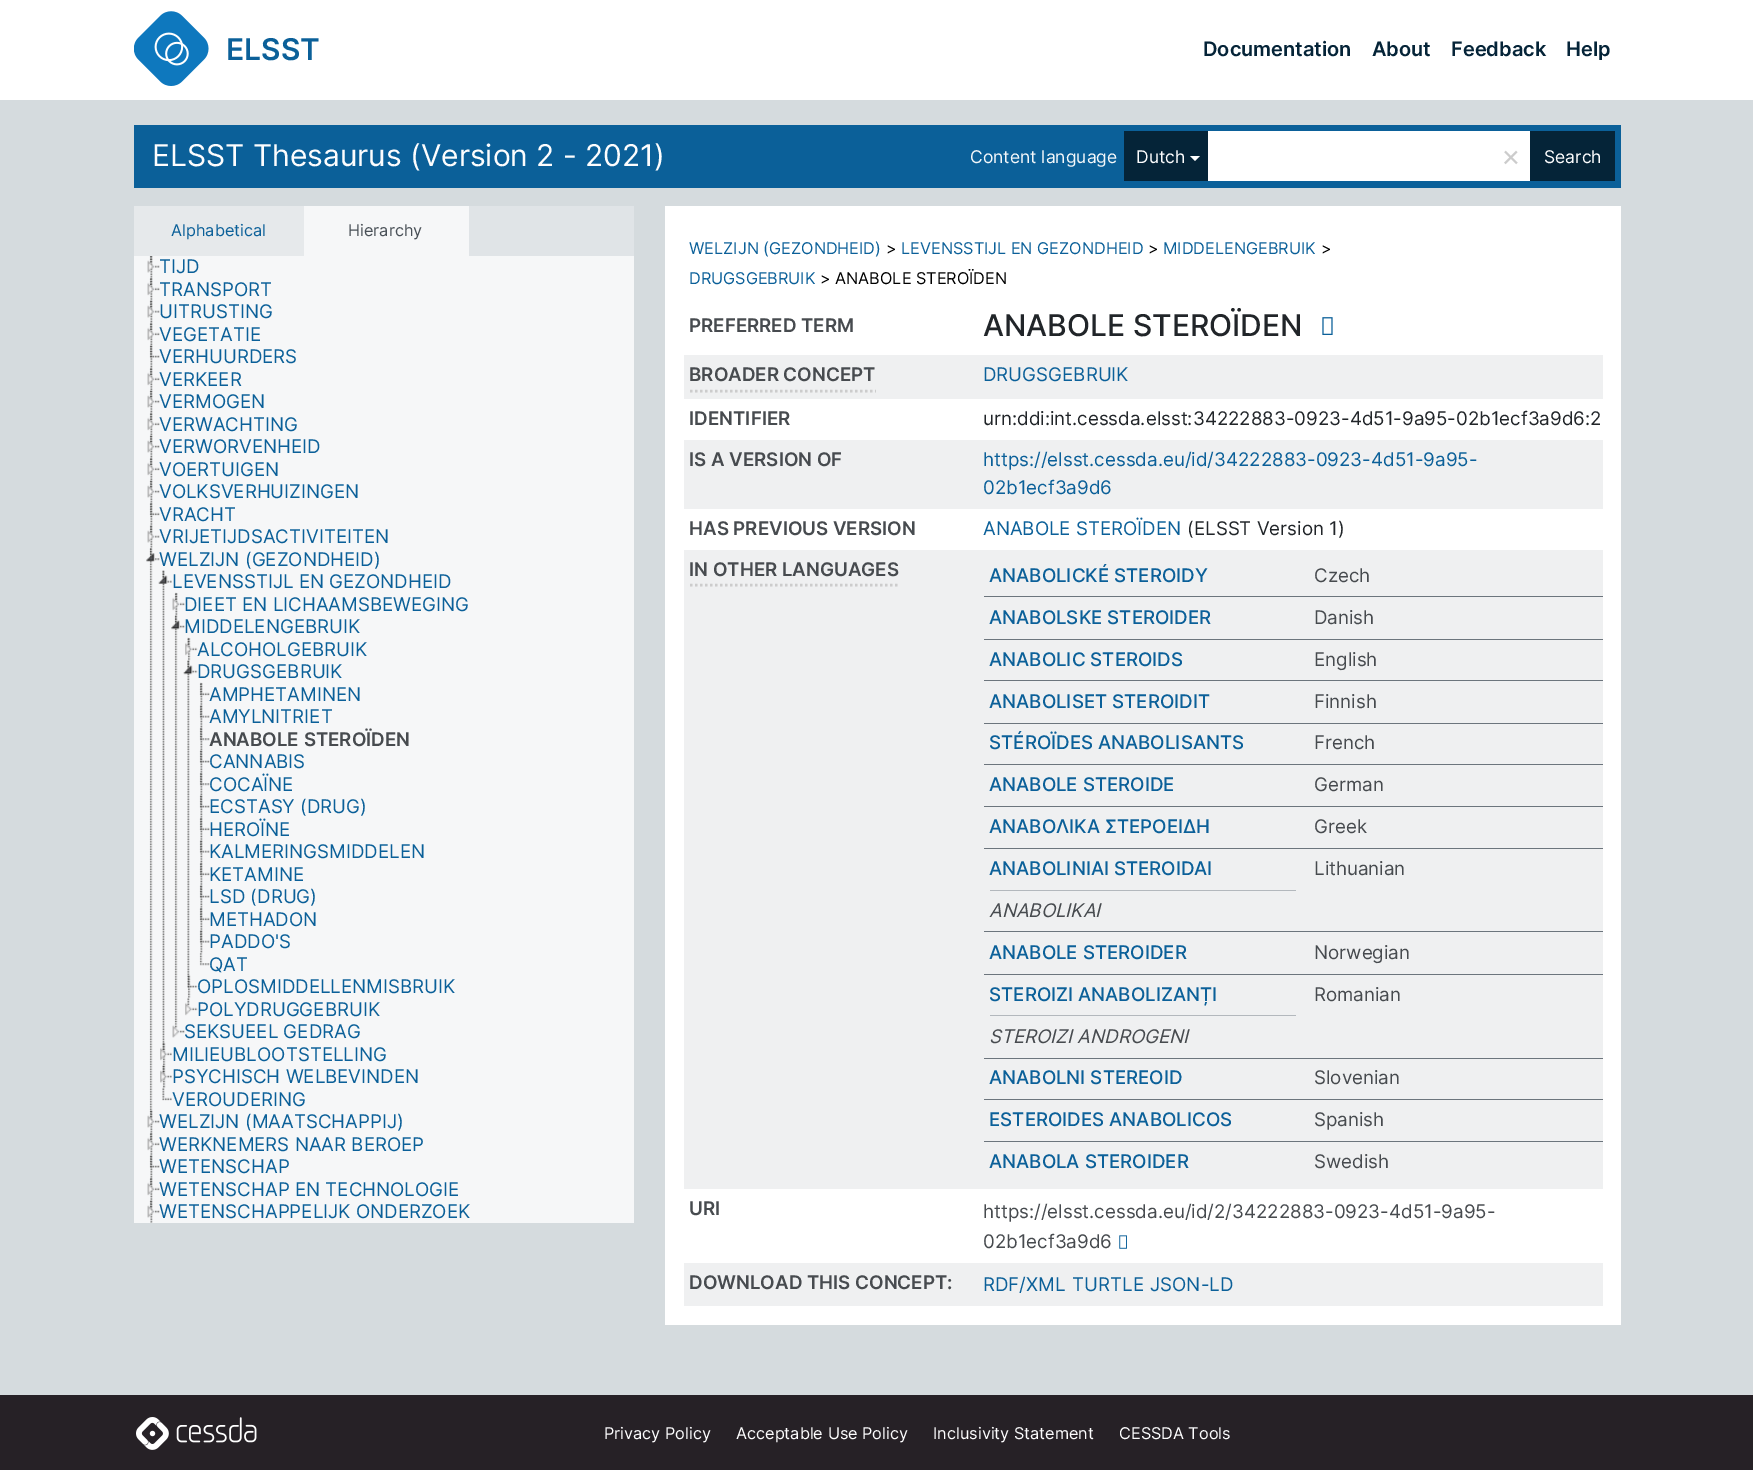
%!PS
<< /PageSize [1753 1470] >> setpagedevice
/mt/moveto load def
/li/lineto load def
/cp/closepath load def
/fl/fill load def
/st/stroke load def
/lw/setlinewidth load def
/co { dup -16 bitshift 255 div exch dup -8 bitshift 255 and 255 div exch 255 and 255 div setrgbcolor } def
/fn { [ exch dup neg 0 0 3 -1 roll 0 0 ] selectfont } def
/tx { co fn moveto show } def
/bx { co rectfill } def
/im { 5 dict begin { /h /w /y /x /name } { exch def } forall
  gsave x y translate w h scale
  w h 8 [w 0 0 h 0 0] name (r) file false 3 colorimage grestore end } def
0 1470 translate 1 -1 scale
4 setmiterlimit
0 0 1753 1470 16#D5DBDE bx
0 0 1753 100 16#FFFFFF bx
(media/1.raw) 134 11 75 75 im
134 125 1487 63 16#0B6099 bx
1124 131 84 50 16#052438 bx
16#FFFFFF co
1190 156 mt 1200 156 li 1195 161 li cp fl
1208 131 322 50 16#FFFFFF bx
1530 131 85 50 16#052438 bx
469 206 165 50 16#E0E4E7 bx
134 206 170 50 16#E6E9EB bx
304 206 165 50 16#F6F7F8 bx
134 256 500 967 16#F6F7F8 bx
(media/2.raw) 150 256 3 22 im
(media/3.raw) 147 256 13 17 im
(media/4.raw) 150 278 3 23 im
(media/5.raw) 147 277 13 19 im
(media/6.raw) 150 300 3 23 im
(media/7.raw) 147 300 13 18 im
(media/8.raw) 150 322 3 24 im
(media/9.raw) 147 322 13 19 im
(media/10.raw) 150 345 3 23 im
(media/11.raw) 149 345 11 13 im
(media/12.raw) 150 367 3 24 im
(media/13.raw) 147 367 13 19 im
(media/10.raw) 150 390 3 23 im
(media/14.raw) 147 390 13 18 im
(media/12.raw) 150 412 3 24 im
(media/13.raw) 147 412 13 19 im
(media/10.raw) 150 435 3 23 im
(media/14.raw) 147 435 13 18 im
(media/12.raw) 150 457 3 24 im
(media/13.raw) 147 457 13 19 im
(media/15.raw) 150 480 3 23 im
(media/16.raw) 147 480 13 18 im
(media/17.raw) 150 503 3 23 im
(media/18.raw) 149 502 11 14 im
(media/19.raw) 150 525 3 23 im
(media/20.raw) 147 525 13 18 im
(media/21.raw) 149 548 4 564 im
(media/22.raw) 146 548 14 14 im
(media/23.raw) 162 570 3 474 im
(media/24.raw) 158 570 14 14 im
(media/25.raw) 175 593 3 23 im
(media/26.raw) 172 592 13 19 im
(media/27.raw) 174 615 4 407 im
(media/28.raw) 171 615 14 15 im
(media/29.raw) 187 638 4 23 im
(media/30.raw) 185 637 13 19 im
(media/31.raw) 187 660 3 317 im
(media/32.raw) 183 660 15 15 im
(media/4.raw) 200 683 3 23 im
(media/33.raw) 199 682 11 14 im
(media/34.raw) 200 705 3 23 im
(media/35.raw) 199 705 11 13 im
(media/36.raw) 200 727 3 24 im
(media/37.raw) 199 728 11 13 im
(media/15.raw) 200 750 3 23 im
(media/38.raw) 199 750 11 13 im
(media/39.raw) 200 772 3 24 im
(media/40.raw) 199 773 11 13 im
(media/15.raw) 200 795 3 23 im
(media/38.raw) 199 795 11 13 im
(media/4.raw) 200 818 3 23 im
(media/18.raw) 199 817 11 14 im
(media/34.raw) 200 840 3 23 im
(media/35.raw) 199 840 11 13 im
(media/41.raw) 200 863 3 23 im
(media/42.raw) 199 862 11 14 im
(media/19.raw) 200 885 3 23 im
(media/43.raw) 199 885 11 13 im
(media/4.raw) 200 908 3 23 im
(media/18.raw) 199 907 11 14 im
(media/34.raw) 200 930 3 23 im
(media/35.raw) 199 930 11 13 im
(media/44.raw) 199 953 11 13 im
(media/45.raw) 187 975 4 23 im
(media/46.raw) 187 975 11 13 im
(media/47.raw) 185 997 13 19 im
(media/48.raw) 172 1020 13 18 im
(media/49.raw) 162 1042 4 24 im
(media/50.raw) 160 1042 12 19 im
(media/51.raw) 162 1065 4 23 im
(media/52.raw) 160 1065 12 18 im
(media/53.raw) 162 1087 10 14 im
(media/54.raw) 150 1110 3 23 im
(media/55.raw) 147 1110 13 18 im
(media/4.raw) 150 1133 3 23 im
(media/56.raw) 147 1132 13 19 im
(media/57.raw) 150 1155 3 23 im
(media/58.raw) 149 1155 11 13 im
(media/25.raw) 150 1178 3 23 im
(media/59.raw) 147 1177 13 19 im
(media/60.raw) 150 1200 3 23 im
(media/61.raw) 147 1200 13 18 im
(media/62.raw) 150 1222 2 1 im
665 206 956 1119 16#FFFFFF bx
(media/63.raw) 1322 317 11 18 im
684 355 919 44 16#EFF0F1 bx
16#CCCCCC co
2.5 lw
[2.5 2.5] 0 setdash
690 391 mt 876 391 li st
684 440 919 69 16#EFF0F1 bx
684 550 919 639 16#EFF0F1 bx
16#CCCCCC co
690 585 mt 900 585 li st
984 596 619 1 16#6C757D bx
984 639 619 1 16#6C757D bx
984 680 619 1 16#6C757D bx
984 723 619 1 16#6C757D bx
984 764 619 1 16#6C757D bx
984 806 619 1 16#6C757D bx
984 848 619 1 16#6C757D bx
990 890 306 1 16#B3B8BD bx
984 931 619 1 16#6C757D bx
984 974 619 1 16#6C757D bx
990 1015 306 1 16#B3B8BD bx
984 1058 619 1 16#6C757D bx
984 1099 619 1 16#6C757D bx
984 1141 619 1 16#6C757D bx
(media/64.raw) 1119 1235 8 14 im
684 1263 919 43 16#EFF0F1 bx
0 1395 1753 75 16#262126 bx
(media/65.raw) 136 1417 121 33 im
(ELSST) 226 60 /Inter-SemiBold 30 16#0B6099 tx
(Documentation) 1203 56 /Inter-SemiBold 20 16#052438 tx
(About) 1372 56 /Inter-SemiBold 20 16#052438 tx
(Feedback) 1451 56 /Inter-SemiBold 20 16#052438 tx
(Help) 1566 56 /Inter-SemiBold 20 16#052438 tx
(ELSST Thesaurus \(Version 2 - 2021\)) 152 166 /Inter-Regular 30 16#FDFDFE tx
(Content language) 970 163 /Inter-Regular 17.5 16#F3F7FA tx
(Dutch) 1136 163 /Inter-Regular 17.5 16#FDFDFE tx
(×) 1501 166 /Inter-Regular 30 16#CCCCCC tx
(Search) 1544 163 /Inter-Regular 17.5 16#FDFDFE tx
(Alphabetical) 171 236 /Inter-Regular 16.25 16#0B6099 tx
(Hierarchy) 348 236 /Inter-Regular 16.25 16#495057 tx
(TIJD) 159 273 /Inter-Regular 18.75 16#0B6099 tx
(TRANSPORT) 159 296 /Inter-Regular 18.75 16#0B6099 tx
(UITRUSTING) 159 318 /Inter-Regular 18.75 16#0B6099 tx
(VEGETATIE) 159 341 /Inter-Regular 18.75 16#0B6099 tx
(VERHUURDERS) 159 363 /Inter-Regular 18.75 16#0B6099 tx
(VERKEER) 159 386 /Inter-Regular 18.75 16#0B6099 tx
(VERMOGEN) 159 408 /Inter-Regular 18.75 16#0B6099 tx
(VERWACHTING) 159 431 /Inter-Regular 18.75 16#0B6099 tx
(VERWORVENHEID) 159 453 /Inter-Regular 18.75 16#0B6099 tx
(VOERTUIGEN) 159 476 /Inter-Regular 18.75 16#0B6099 tx
(VOLKSVERHUIZINGEN) 159 498 /Inter-Regular 18.75 16#0B6099 tx
(VRACHT) 159 521 /Inter-Regular 18.75 16#0B6099 tx
(VRIJETIJDSACTIVITEITEN) 159 543 /Inter-Regular 18.75 16#0B6099 tx
(WELZIJN \(GEZONDHEID\)) 159 566 /Inter-Regular 18.75 16#0B6099 tx
(LEVENSSTIJL EN GEZONDHEID) 172 588 /Inter-Regular 18.75 16#0B6099 tx
(DIEET EN LICHAAMSBEWEGING) 184 611 /Inter-Regular 18.75 16#0B6099 tx
(MIDDELENGEBRUIK) 184 633 /Inter-Regular 18.75 16#0B6099 tx
(ALCOHOLGEBRUIK) 197 656 /Inter-Regular 18.75 16#0B6099 tx
(DRUGSGEBRUIK) 197 678 /Inter-Regular 18.75 16#0B6099 tx
(AMPHETAMINEN) 209 701 /Inter-Regular 18.75 16#0B6099 tx
(AMYLNITRIET) 209 723 /Inter-Regular 18.75 16#0B6099 tx
(ANABOLE STEROÏDEN) 209 746 /Inter-SemiBold 18.75 16#474B4F tx
(CANNABIS) 209 768 /Inter-Regular 18.75 16#0B6099 tx
(COCAÏNE) 209 791 /Inter-Regular 18.75 16#0B6099 tx
(ECSTASY \(DRUG\)) 209 813 /Inter-Regular 18.75 16#0B6099 tx
(HEROÏNE) 209 836 /Inter-Regular 18.75 16#0B6099 tx
(KALMERINGSMIDDELEN) 209 858 /Inter-Regular 18.75 16#0B6099 tx
(KETAMINE) 209 881 /Inter-Regular 18.75 16#0B6099 tx
(LSD \(DRUG\)) 209 903 /Inter-Regular 18.75 16#0B6099 tx
(METHADON) 209 926 /Inter-Regular 18.75 16#0B6099 tx
(PADDO'S) 209 948 /Inter-Regular 18.75 16#0B6099 tx
(QAT) 209 971 /Inter-Regular 18.75 16#0B6099 tx
(OPLOSMIDDELLENMISBRUIK) 197 993 /Inter-Regular 18.75 16#0B6099 tx
(POLYDRUGGEBRUIK) 197 1016 /Inter-Regular 18.75 16#0B6099 tx
(SEKSUEEL GEDRAG) 184 1038 /Inter-Regular 18.75 16#0B6099 tx
(MILIEUBLOOTSTELLING) 172 1061 /Inter-Regular 18.75 16#0B6099 tx
(PSYCHISCH WELBEVINDEN) 172 1083 /Inter-Regular 18.75 16#0B6099 tx
(VEROUDERING) 172 1106 /Inter-Regular 18.75 16#0B6099 tx
(WELZIJN \(MAATSCHAPPIJ\)) 159 1128 /Inter-Regular 18.75 16#0B6099 tx
(WERKNEMERS NAAR BEROEP) 159 1151 /Inter-Regular 18.75 16#0B6099 tx
(WETENSCHAP) 159 1173 /Inter-Regular 18.75 16#0B6099 tx
(WETENSCHAP EN TECHNOLOGIE) 159 1196 /Inter-Regular 18.75 16#0B6099 tx
(WETENSCHAPPELIJK ONDERZOEK) 159 1218 /Inter-Regular 18.75 16#0B6099 tx
(WELZIJN \(GEZONDHEID\)) 689 254 /Inter-Regular 16.25 16#0B6099 tx
(>) 886 254 /Inter-Regular 16.25 16#000000 tx
(LEVENSSTIJL EN GEZONDHEID) 901 254 /Inter-Regular 16.25 16#0B6099 tx
(>) 1148 254 /Inter-Regular 16.25 16#000000 tx
(MIDDELENGEBRUIK) 1163 254 /Inter-Regular 16.25 16#0B6099 tx
(>) 1321 254 /Inter-Regular 16.25 16#000000 tx
(DRUGSGEBRUIK) 689 284 /Inter-Regular 16.25 16#0B6099 tx
(> ANABOLE STEROÏDEN) 820 284 /Inter-Regular 16.25 16#000000 tx
(PREFERRED TERM) 689 332 /Inter-SemiBold 18.75 16#474B4F tx
(ANABOLE STEROÏDEN) 983 336 /Inter-Medium 30 16#212529 tx
(BROADER CONCEPT) 689 381 /Inter-SemiBold 18.75 16#474B4F tx
(DRUGSGEBRUIK) 983 381 /Inter-Regular 18.75 16#0B6099 tx
(IDENTIFIER) 689 425 /Inter-SemiBold 18.75 16#474B4F tx
(urn:ddi:int.cessda.elsst:34222883-0923-4d51-9a95-02b1ecf3a9d6:2) 983 425 /Inter-Regular 18.75 16#212529 tx
(IS A VERSION OF) 689 466 /Inter-SemiBold 18.75 16#474B4F tx
(https://elsst.cessda.eu/id/34222883-0923-4d51-9a95-) 983 466 /Inter-Regular 18.75 16#0B6099 tx
(02b1ecf3a9d6) 983 494 /Inter-Regular 18.75 16#0B6099 tx
(HAS PREVIOUS VERSION) 689 535 /Inter-SemiBold 18.75 16#474B4F tx
(ANABOLE STEROÏDEN) 983 535 /Inter-Regular 18.75 16#0B6099 tx
(\(ELSST Version 1\)) 1187 535 /Inter-Regular 18.75 16#212529 tx
(IN OTHER LANGUAGES) 689 576 /Inter-SemiBold 18.75 16#474B4F tx
(ANABOLICKÉ STEROIDY) 989 582 /Inter-Medium 18.75 16#0B6099 tx
(Czech) 1314 582 /Inter-Regular 18.75 16#474B4F tx
(ANABOLSKE STEROIDER) 989 624 /Inter-Medium 18.75 16#0B6099 tx
(Danish) 1314 624 /Inter-Regular 18.75 16#474B4F tx
(ANABOLIC STEROIDS) 989 666 /Inter-Medium 18.75 16#0B6099 tx
(English) 1314 666 /Inter-Regular 18.75 16#474B4F tx
(ANABOLISET STEROIDIT) 989 708 /Inter-Medium 18.75 16#0B6099 tx
(Finnish) 1314 708 /Inter-Regular 18.75 16#474B4F tx
(STÉROÏDES ANABOLISANTS) 989 749 /Inter-Medium 18.75 16#0B6099 tx
(French) 1314 749 /Inter-Regular 18.75 16#474B4F tx
(ANABOLE STEROIDE) 989 791 /Inter-Medium 18.75 16#0B6099 tx
(German) 1314 791 /Inter-Regular 18.75 16#474B4F tx
(ΑΝΑΒΟΛΙΚΑ ΣΤΕΡΟΕΙΔΗ) 989 833 /Inter-Medium 18.75 16#0B6099 tx
(Greek) 1314 833 /Inter-Regular 18.75 16#474B4F tx
(ANABOLINIAI STEROIDAI) 989 875 /Inter-Medium 18.75 16#0B6099 tx
(Lithuanian) 1314 875 /Inter-Regular 18.75 16#474B4F tx
(ANABOLIKAI) 989 917 /Inter-Italic 18.75 16#474B4F tx
(ANABOLE STEROIDER) 989 959 /Inter-Medium 18.75 16#0B6099 tx
(Norwegian) 1314 959 /Inter-Regular 18.75 16#474B4F tx
(STEROIZI ANABOLIZANȚI) 989 1001 /Inter-Medium 18.75 16#0B6099 tx
(Romanian) 1314 1001 /Inter-Regular 18.75 16#474B4F tx
(STEROIZI ANDROGENI) 989 1043 /Inter-Italic 18.75 16#474B4F tx
(ANABOLNI STEREOID) 989 1084 /Inter-Medium 18.75 16#0B6099 tx
(Slovenian) 1314 1084 /Inter-Regular 18.75 16#474B4F tx
(ESTEROIDES ANABOLICOS) 989 1126 /Inter-Medium 18.75 16#0B6099 tx
(Spanish) 1314 1126 /Inter-Regular 18.75 16#474B4F tx
(ANABOLA STEROIDER) 989 1168 /Inter-Medium 18.75 16#0B6099 tx
(Swedish) 1314 1168 /Inter-Regular 18.75 16#474B4F tx
(URI) 689 1215 /Inter-SemiBold 18.75 16#474B4F tx
(https://elsst.cessda.eu/id/2/34222883-0923-4d51-9a95-) 983 1218 /Inter-Regular 18.75 16#474B4F tx
(02b1ecf3a9d6) 983 1248 /Inter-Regular 18.75 16#474B4F tx
(DOWNLOAD THIS CONCEPT:) 689 1289 /Inter-SemiBold 18.75 16#474B4F tx
(RDF/XML) 983 1291 /Inter-Regular 18.75 16#0B6099 tx
(TURTLE) 1072 1291 /Inter-Regular 18.75 16#0B6099 tx
(JSON-LD) 1150 1291 /Inter-Regular 18.75 16#0B6099 tx
(Privacy Policy) 604 1439 /Inter-Regular 16.25 16#FDFDFE tx
(Acceptable Use Policy) 736 1439 /Inter-Regular 16.25 16#FDFDFE tx
(Inclusivity Statement) 933 1439 /Inter-Regular 16.25 16#FDFDFE tx
(CESSDA Tools) 1119 1439 /Inter-Regular 16.25 16#FDFDFE tx
showpage
